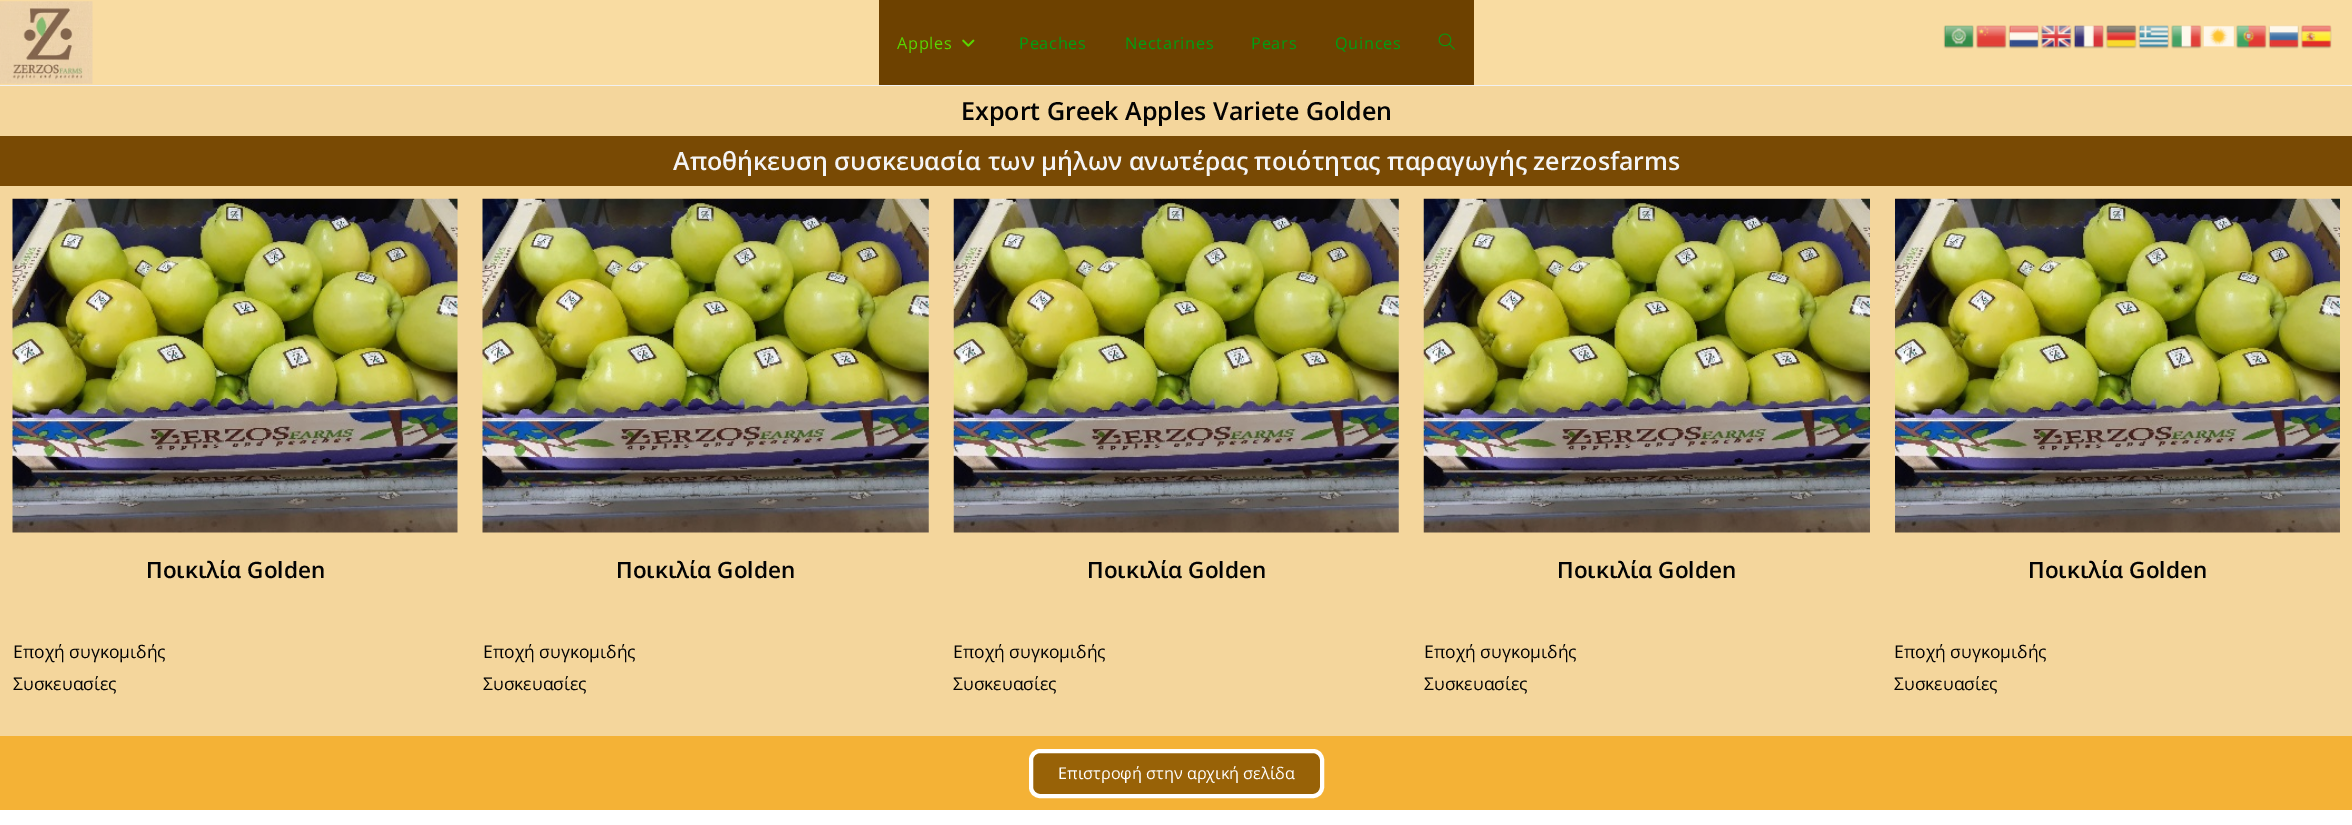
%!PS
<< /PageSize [2352 825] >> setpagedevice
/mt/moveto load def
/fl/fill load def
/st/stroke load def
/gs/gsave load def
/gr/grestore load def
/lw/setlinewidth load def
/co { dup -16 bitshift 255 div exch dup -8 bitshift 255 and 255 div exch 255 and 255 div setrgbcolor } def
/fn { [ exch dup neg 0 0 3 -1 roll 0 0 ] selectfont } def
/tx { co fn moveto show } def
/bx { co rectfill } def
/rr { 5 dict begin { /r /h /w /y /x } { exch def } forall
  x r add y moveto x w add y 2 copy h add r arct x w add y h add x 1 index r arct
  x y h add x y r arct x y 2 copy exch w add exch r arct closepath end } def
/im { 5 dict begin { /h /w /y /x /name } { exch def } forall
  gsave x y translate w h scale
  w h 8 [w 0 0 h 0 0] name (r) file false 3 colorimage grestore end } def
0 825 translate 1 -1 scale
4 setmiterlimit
0 0 2352 825 16#FFFFFF bx
0 0 2352 85 16#F9DCA2 bx
(media/1.raw) 1943 25 31 24 im
(media/2.raw) 1976 25 31 24 im
(media/3.raw) 2008 25 31 24 im
(media/4.raw) 2041 25 31 24 im
(media/5.raw) 2073 25 31 24 im
(media/6.raw) 2106 25 31 24 im
(media/7.raw) 2138 25 31 24 im
(media/8.raw) 2171 25 31 24 im
(media/9.raw) 2203 26 31 21 im
(media/10.raw) 2236 25 31 24 im
(media/11.raw) 2268 25 31 24 im
(media/12.raw) 2301 25 31 24 im
0 85 2352 1 16#F1F1F1 bx
(media/13.raw) 0 1 93 83 im
879 0 595 85 16#6D4100 bx
(media/14.raw) 962 39 13 8 im
(media/15.raw) 1438 33 17 17 im
0 86 2352 50 16#F4D69C bx
0 136 2352 50 16#794A04 bx
0 186 2352 550 16#F4D69C bx
(media/16.raw) 12 198 446 335 im
(media/17.raw) 482 198 447 335 im
(media/18.raw) 953 198 446 335 im
(media/19.raw) 1423 198 447 335 im
(media/20.raw) 1895 198 445 335 im
0 736 2352 74 16#F4B236 bx
16#986207 co
1031 751 291 45 9 rr gs fl gr
16#FFFFFF co
4 lw
st
/OpenSans-Regular 16.25 fn
16#59D600 co
897 49 mt .75 0 (Apples) ashow
16#009E12 co
1019 49 mt .75 0 (Peaches) ashow
1125 49 mt .75 0 (Nectarines) ashow
1251 49 mt .75 0 (Pears) ashow
1335 49 mt .75 0 (Quinces) ashow
(Export Greek Apples Variete Golden) 961 120 /OpenSans-SemiBold 25 16#030303 tx
(Αποθήκευση συσκευασία των μήλων ανωτέρας ποιότητας παραγωγής zerzosfarms) 673 170 /OpenSans-SemiBold 25 16#F4F4F4 tx
(Ποικιλία Golden) 146 578 /OpenSans-SemiBold 22.5 16#030303 tx
(Εποχή συγκομιδής) 13 658 /OpenSans-Regular 17.5 16#030303 tx
(Συσκευασίες) 13 690 /OpenSans-Regular 17.5 16#030303 tx
(Ποικιλία Golden) 616 578 /OpenSans-SemiBold 22.5 16#030303 tx
(Εποχή συγκομιδής) 483 658 /OpenSans-Regular 17.5 16#030303 tx
(Συσκευασίες) 483 690 /OpenSans-Regular 17.5 16#030303 tx
(Ποικιλία Golden) 1087 578 /OpenSans-SemiBold 22.5 16#030303 tx
(Εποχή συγκομιδής) 953 658 /OpenSans-Regular 17.5 16#030303 tx
(Συσκευασίες) 953 690 /OpenSans-Regular 17.5 16#030303 tx
(Ποικιλία Golden) 1557 578 /OpenSans-SemiBold 22.5 16#030303 tx
(Εποχή συγκομιδής) 1424 658 /OpenSans-Regular 17.5 16#030303 tx
(Συσκευασίες) 1424 690 /OpenSans-Regular 17.5 16#030303 tx
(Ποικιλία Golden) 2028 578 /OpenSans-SemiBold 22.5 16#030303 tx
(Εποχή συγκομιδής) 1894 658 /OpenSans-Regular 17.5 16#030303 tx
(Συσκευασίες) 1894 690 /OpenSans-Regular 17.5 16#030303 tx
(Επιστροφή στην αρχική σελίδα) 1058 779 /OpenSans-Regular 16.25 16#FFFFFF tx
showpage
